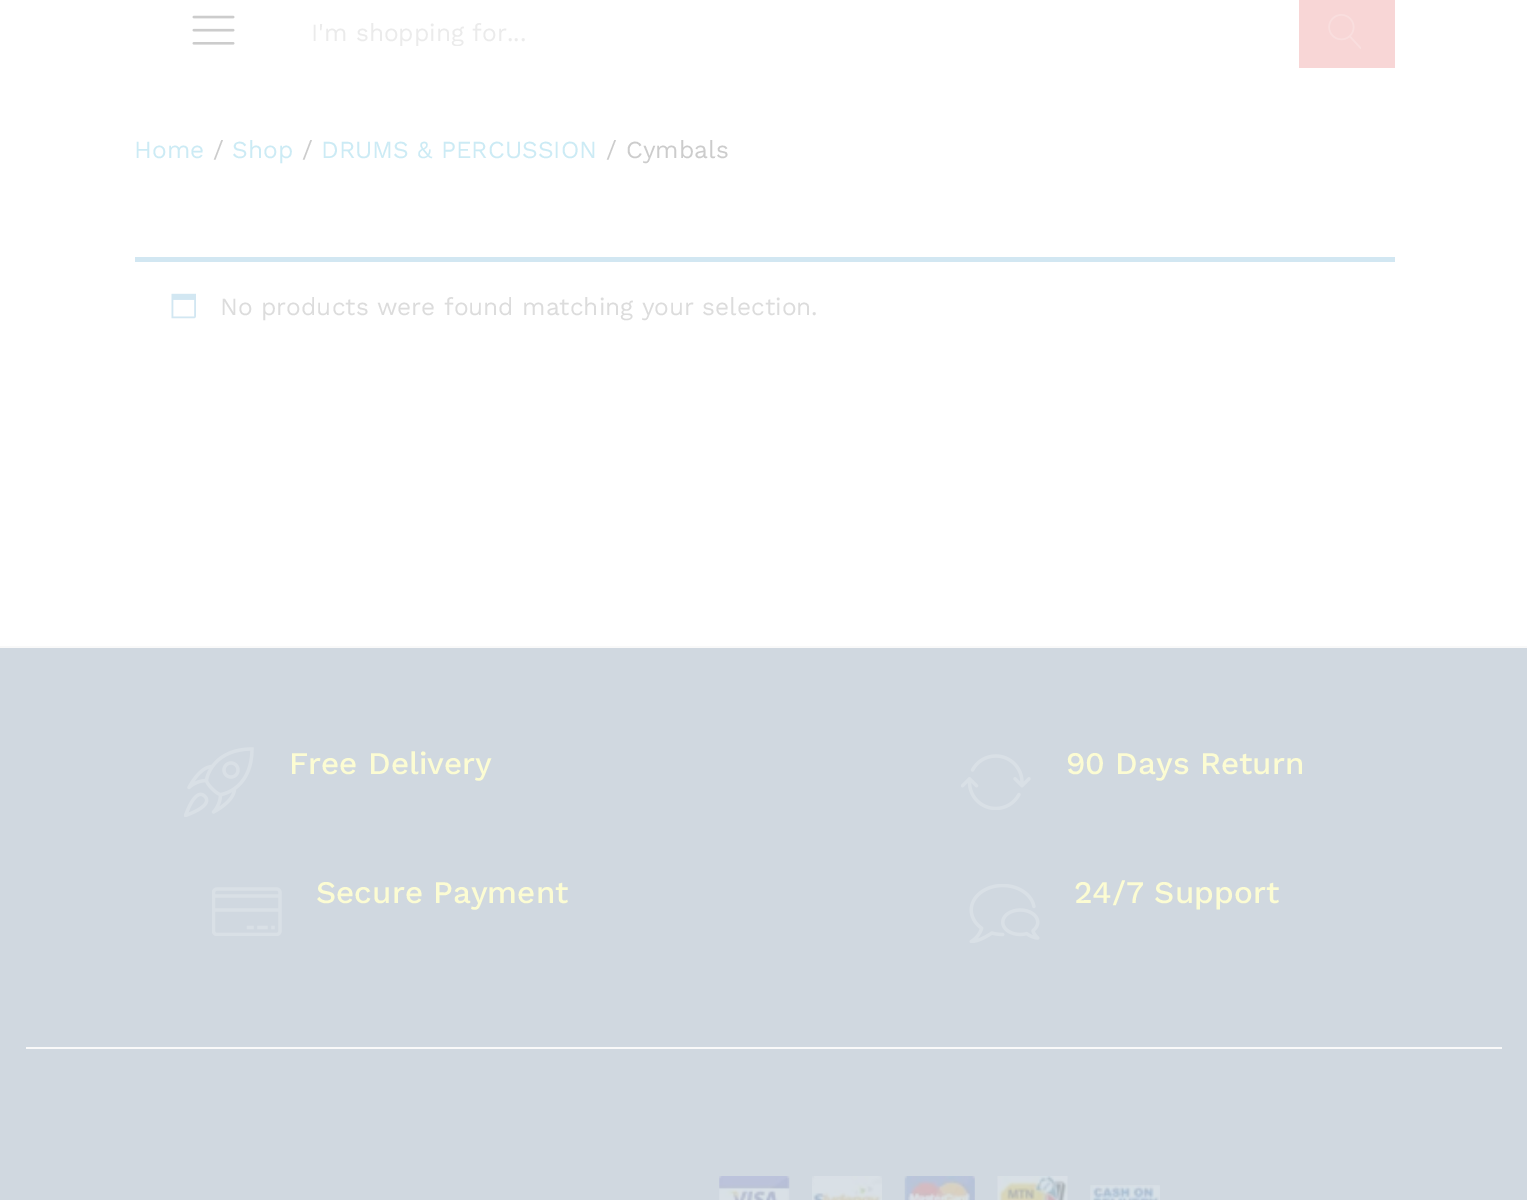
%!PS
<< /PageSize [1527 1200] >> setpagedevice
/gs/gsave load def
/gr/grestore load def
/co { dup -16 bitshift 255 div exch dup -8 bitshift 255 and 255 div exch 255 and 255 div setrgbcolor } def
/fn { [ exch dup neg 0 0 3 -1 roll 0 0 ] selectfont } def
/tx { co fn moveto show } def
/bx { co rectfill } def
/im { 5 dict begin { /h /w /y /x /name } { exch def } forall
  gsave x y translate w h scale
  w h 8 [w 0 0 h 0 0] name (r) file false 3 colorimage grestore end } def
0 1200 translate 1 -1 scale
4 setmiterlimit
0 0 1527 1200 16#FFFFFF bx
(media/1.raw) 192 15 43 30 im
1299 0 96 68 16#F8D6D6 bx
(media/2.raw) 1328 14 33 35 im
135 257 1260 5 16#D2E7F2 bx
(media/3.raw) 171 293 25 26 im
0 646 1527 2 16#F9F9F9 bx
0 648 1527 552 16#D0D8E0 bx
26 1047 1476 2 16#F9F9F9 bx
(media/4.raw) 184 747 70 70 im
(media/5.raw) 961 754 70 56 im
(media/6.raw) 212 887 70 49 im
(media/7.raw) 969 884 71 59 im
(media/8.raw) 719 1176 71 24 im
(media/9.raw) 812 1176 70 24 im
(media/10.raw) 904 1176 71 24 im
(media/11.raw) 997 1176 71 24 im
(media/12.raw) 1090 1185 70 15 im
gs
312 18 952 28 rectclip
(I'm shopping for...) 311 41 /WorkSans-Regular 24.5 16#EBEBEB tx
gr
(Home) 134 158 /WorkSans-Regular 24.5 16#CCEBF5 tx
(/) 213 158 /WorkSans-Regular 24.5 16#CCCCCC tx
(Shop) 232 158 /WorkSans-Regular 24.5 16#CCEBF5 tx
(/) 302 158 /WorkSans-Regular 24.5 16#CCCCCC tx
(DRUMS & PERCUSSION) 321 158 /WorkSans-Regular 24.5 16#CCEBF5 tx
(/) 606 158 /WorkSans-Regular 24.5 16#CCCCCC tx
(Cymbals) 626 158 /WorkSans-Regular 24.5 16#CCCCCC tx
(No products were found matching your selection.) 220 315 /WorkSans-Regular 24.5 16#DCDCDC tx
(Free Delivery) 289 774 /WorkSans-Medium 31.5 16#FCFCD3 tx
(90 Days Return) 1066 774 /WorkSans-Medium 31.5 16#FCFCD3 tx
(Secure Payment) 316 903 /WorkSans-Medium 31.5 16#FCFCD3 tx
(24/7 Support) 1074 903 /WorkSans-Medium 31.5 16#FCFCD3 tx
showpage
